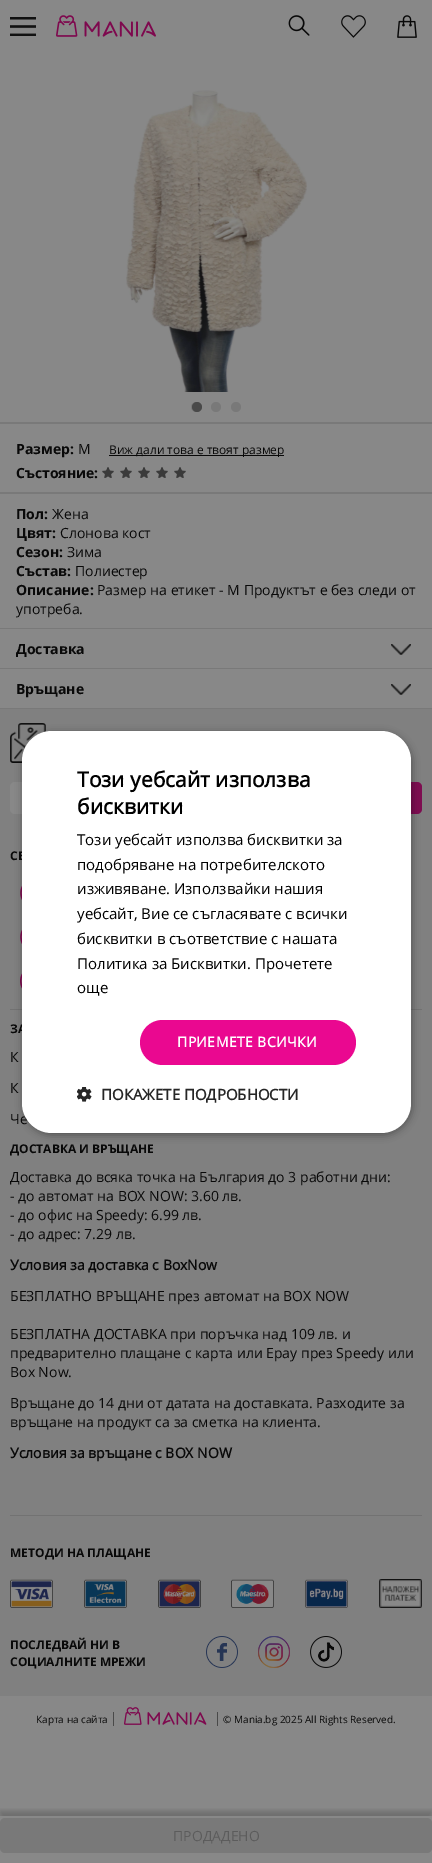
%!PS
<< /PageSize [432 1863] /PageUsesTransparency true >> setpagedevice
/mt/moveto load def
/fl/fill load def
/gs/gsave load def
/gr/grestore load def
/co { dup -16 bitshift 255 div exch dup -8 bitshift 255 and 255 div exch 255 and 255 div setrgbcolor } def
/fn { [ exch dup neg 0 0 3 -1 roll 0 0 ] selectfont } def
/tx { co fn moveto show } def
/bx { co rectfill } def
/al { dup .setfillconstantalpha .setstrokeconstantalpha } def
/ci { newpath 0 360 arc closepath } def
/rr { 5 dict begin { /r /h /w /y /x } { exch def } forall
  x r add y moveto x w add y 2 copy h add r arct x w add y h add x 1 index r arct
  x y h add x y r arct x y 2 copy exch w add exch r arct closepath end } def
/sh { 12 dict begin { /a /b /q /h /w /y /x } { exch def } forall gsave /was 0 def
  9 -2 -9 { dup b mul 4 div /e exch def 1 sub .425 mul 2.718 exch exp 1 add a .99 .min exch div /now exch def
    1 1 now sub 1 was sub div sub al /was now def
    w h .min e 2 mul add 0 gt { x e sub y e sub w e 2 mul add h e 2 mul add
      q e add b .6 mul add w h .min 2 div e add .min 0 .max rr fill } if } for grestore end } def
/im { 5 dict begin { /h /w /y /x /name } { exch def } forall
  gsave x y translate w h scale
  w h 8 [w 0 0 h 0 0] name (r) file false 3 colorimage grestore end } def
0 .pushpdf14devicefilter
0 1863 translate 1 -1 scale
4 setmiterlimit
0 0 432 1863 16#888888 bx
(media/1.raw) 10 17 26 19 im
(media/2.raw) 56 15 100 22 im
(media/3.raw) 288 15 22 21 im
(media/4.raw) 341 15 25 23 im
(media/5.raw) 397 15 20 23 im
0 422 432 2 16#797979 bx
(media/6.raw) 126 90 181 302 im
196 407 5 ci fl
16#494949 co
197 407 5 ci fl
16#797979 co
216 407 5 ci fl
236 407 5 ci fl
0 492 432 2 16#797979 bx
109 455 175 1 16#090909 bx
(media/7.raw) 102 467 84 11 im
0 628 432 1 16#797979 bx
0 668 432 1 16#797979 bx
(media/8.raw) 391 644 20 11 im
0 708 432 1 16#797979 bx
(media/9.raw) 391 684 20 11 im
gs
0 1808 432 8 rectclip
16#090909 co
0 1811 432 47 0 2.5 .2 sh
gr
0 1818 432 35 5 rr fl
0 709 432 987 16#808080 bx
(media/11.raw) 10 723 40 40 im
16#888888 co
10 782 301 32 5 rr fl
16#7E0D51 co
322 782 100 32 5 rr fl
(media/12.raw) 20 885 2 15 im
(media/12.raw) 20 929 2 15 im
(media/13.raw) 20 973 2 16 im
10 1009 412 1 16#727272 bx
16#000000 co
23 733 389 402 30 4 .35 sh
10 1515 412 1 16#727272 bx
(media/14.raw) 10 1579 43 29 im
(media/15.raw) 84 1579 43 29 im
(media/16.raw) 158 1579 43 29 im
(media/17.raw) 231 1579 43 29 im
(media/18.raw) 305 1579 43 29 im
(media/19.raw) 379 1579 43 29 im
(media/20.raw) 206 1636 32 32 im
(media/21.raw) 258 1636 32 32 im
(media/22.raw) 310 1636 32 32 im
113 1712 1 14 16#494949 bx
(media/23.raw) 124 1707 83 18 im
217 1712 1 14 16#494949 bx
(Размер:) 16 454 /OpenSans-Bold 14 16#090909 tx
(M) 78 454 /OpenSans-Regular 14 16#090909 tx
(Виж дали това е твоят размер) 109 454 /OpenSans-Regular 12 16#090909 tx
(Състояние:) 16 478 /OpenSans-Bold 14 16#090909 tx
(Пол:) 16 519 /OpenSans-Bold 14 16#090909 tx
(Жена) 52 519 /OpenSans-Regular 14 16#090909 tx
(Цвят:) 16 538 /OpenSans-Bold 14 16#090909 tx
(Слонова кост) 60 538 /OpenSans-Regular 14 16#090909 tx
(Сезон:) 16 557 /OpenSans-Bold 14 16#090909 tx
(Зима) 67 557 /OpenSans-Regular 14 16#090909 tx
(Състав:) 16 576 /OpenSans-Bold 14 16#090909 tx
(Полиестер) 75 576 /OpenSans-Regular 14 16#090909 tx
(Описание:) 16 595 /OpenSans-Bold 14 16#090909 tx
(Размер на етикет - M Продуктът е без следи от) 97 595 /OpenSans-Regular 14 16#090909 tx
(употреба.) 16 614 /OpenSans-Regular 14 16#090909 tx
(Доставка) 16 654 /OpenSans-Bold 14 16#090909 tx
(Връщане) 16 694 /OpenSans-Bold 14 16#090909 tx
(ПРОДАДЕНО) 173 1841 /OpenSans-Regular 14 16#5C5C5C tx
(СВ) 10 860 /OpenSans-Bold 12 16#090909 tx
(ЗА) 10 1033 /OpenSans-Bold 12 16#090909 tx
(К) 10 1062 /OpenSans-Regular 14 16#090909 tx
(К) 10 1093 /OpenSans-Regular 14 16#090909 tx
(Че) 10 1124 /OpenSans-Regular 14 16#090909 tx
16#FFFFFF co
22 731 389 402 30 rr fl
(бисквитки) 77 814 /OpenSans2-Bold 21 16#000000 tx
(Този уебсайт използва) 77 787 /OpenSans2-Bold 21 16#000000 tx
(media/10.raw) 77 1087 15 15 im
(ПОКАЖЕТЕ ПОДРОБНОСТИ) 101 1100 /OpenSans2-Bold 15 16#262626 tx
16#EA0890 co
140 1020 216 45 22.5 rr fl
/OpenSans2-Bold 14 fn
16#FFFFFF co
177 1047 mt .4 0 (ПРИЕМЕТЕ ВСИЧКИ) ashow
(още) 77 993 /OpenSans-Regular 15 16#000000 tx
(Политика за Бисквитки. Прочетете) 77 969 /OpenSans-Regular 15 16#000000 tx
(бисквитки в съответствие с нашата) 77 944 /OpenSans-Regular 15 16#000000 tx
(уебсайт, Вие се съгласявате с всички) 77 919 /OpenSans-Regular 15 16#000000 tx
(изживяване. Използвайки нашия) 77 894 /OpenSans-Regular 15 16#000000 tx
(подобряване на потребителското) 77 870 /OpenSans-Regular 15 16#000000 tx
(Този уебсайт използва бисквитки за) 77 845 /OpenSans-Regular 15 16#000000 tx
(ДОСТАВКА И ВРЪЩАНЕ) 10 1153 /OpenSans-Bold 12 16#090909 tx
(Доставка до всяка точка на България до 3 работни дни:) 10 1182 /OpenSans-Regular 14 16#090909 tx
(- до автомат на BOX NOW: 3.60 лв.) 10 1201 /OpenSans-Regular 14 16#090909 tx
(- до офис на Speedy: 6.99 лв.) 10 1220 /OpenSans-Regular 14 16#090909 tx
(- до адрес: 7.29 лв.) 10 1239 /OpenSans-Regular 14 16#090909 tx
(Условия за доставка с BoxNow) 10 1270 /OpenSans2-Bold 14 16#090909 tx
(БЕЗПЛАТНО ВРЪЩАНЕ през автомат на BOX NOW) 10 1301 /OpenSans-Regular 14 16#090909 tx
(БЕЗПЛАТНА ДОСТАВКА при поръчка над 109 лв. и) 10 1339 /OpenSans-Regular 14 16#090909 tx
(предварително плащане с карта или Epay през Speedy или) 10 1358 /OpenSans-Regular 14 16#090909 tx
(Box Now.) 10 1377 /OpenSans-Regular 14 16#090909 tx
(Връщане до 14 дни от датата на доставката. Разходите за) 10 1408 /OpenSans-Regular 14 16#090909 tx
(връщане на продукт са за сметка на клиента.) 10 1427 /OpenSans-Regular 14 16#090909 tx
(Условия за връщане с BOX NOW) 10 1458 /OpenSans2-Bold 14 16#090909 tx
(МЕТОДИ НА ПЛАЩАНЕ) 10 1557 /OpenSans-Bold 12 16#090909 tx
(ПОСЛЕДВАЙ НИ В) 10 1649 /OpenSans-Bold 12 16#090909 tx
(СОЦИАЛНИТЕ МРЕЖИ) 10 1666 /OpenSans-Bold 12 16#090909 tx
(Карта на сайта) 36 1723 /OpenSans-Regular 10 16#090909 tx
(© Mania.bg 2025 All Rights Reserved.) 223 1723 /OpenSans-Regular 10 16#090909 tx
.poppdf14devicefilter showpage
